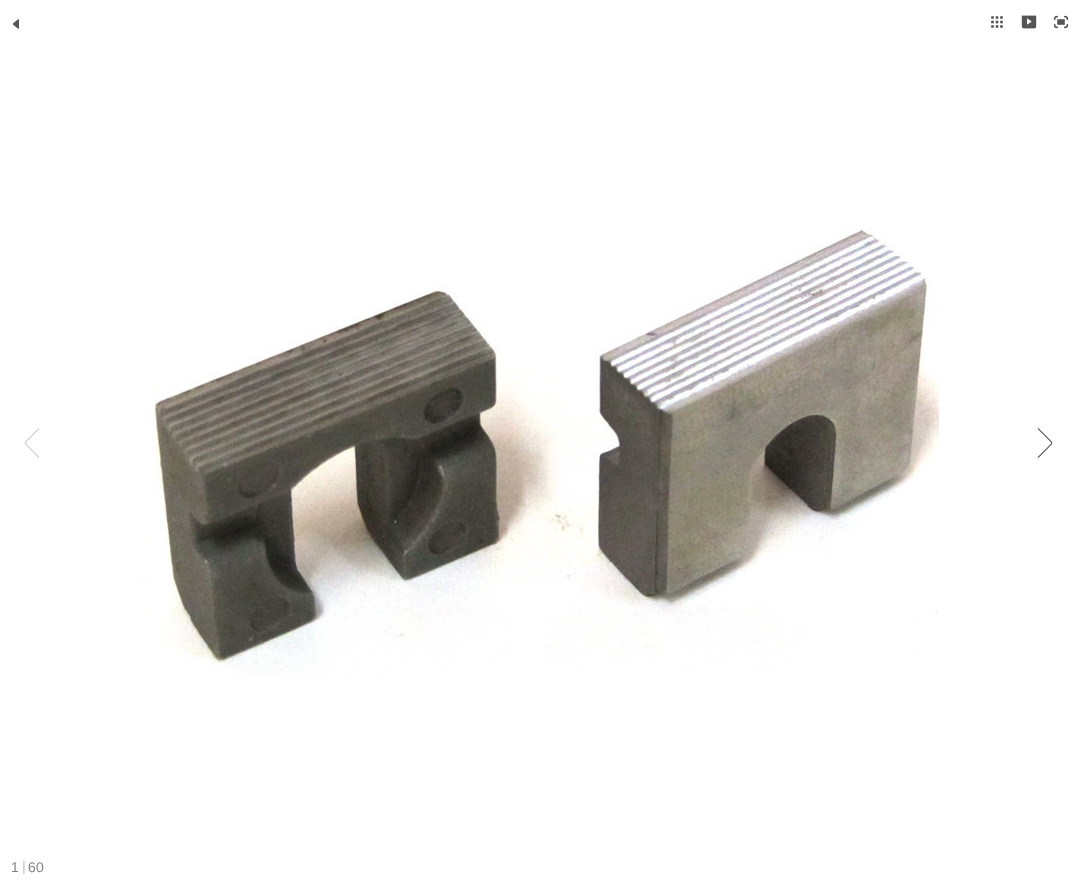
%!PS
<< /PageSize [1077 888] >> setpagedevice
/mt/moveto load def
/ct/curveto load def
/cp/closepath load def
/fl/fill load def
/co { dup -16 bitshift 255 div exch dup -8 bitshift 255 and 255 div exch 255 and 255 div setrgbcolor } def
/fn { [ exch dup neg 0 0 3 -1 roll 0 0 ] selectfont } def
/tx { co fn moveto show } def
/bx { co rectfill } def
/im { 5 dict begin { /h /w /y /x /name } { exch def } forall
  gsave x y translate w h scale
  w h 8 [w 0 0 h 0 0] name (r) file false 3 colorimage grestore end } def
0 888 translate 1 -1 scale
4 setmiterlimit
0 0 1077 888 16#FFFFFF bx
16#555555 co
19 29 mt 11 23 11 25 19 19 ct cp fl
(media/1.raw) 991 16 12 12 im
(media/2.raw) 1021 15 16 14 im
(media/3.raw) 1053 15 16 14 im
(media/4.raw) 24 428 16 30 im
(media/5.raw) 142 229 797 446 im
(media/6.raw) 1037 428 16 30 im
(1) 11 872 /LiberationSans-Regular 14 16#858585 tx
(|) 22 871 /LiberationSans-Regular 14 16#C2C2C2 tx
(60) 28 872 /LiberationSans-Regular 14 16#858585 tx
showpage
